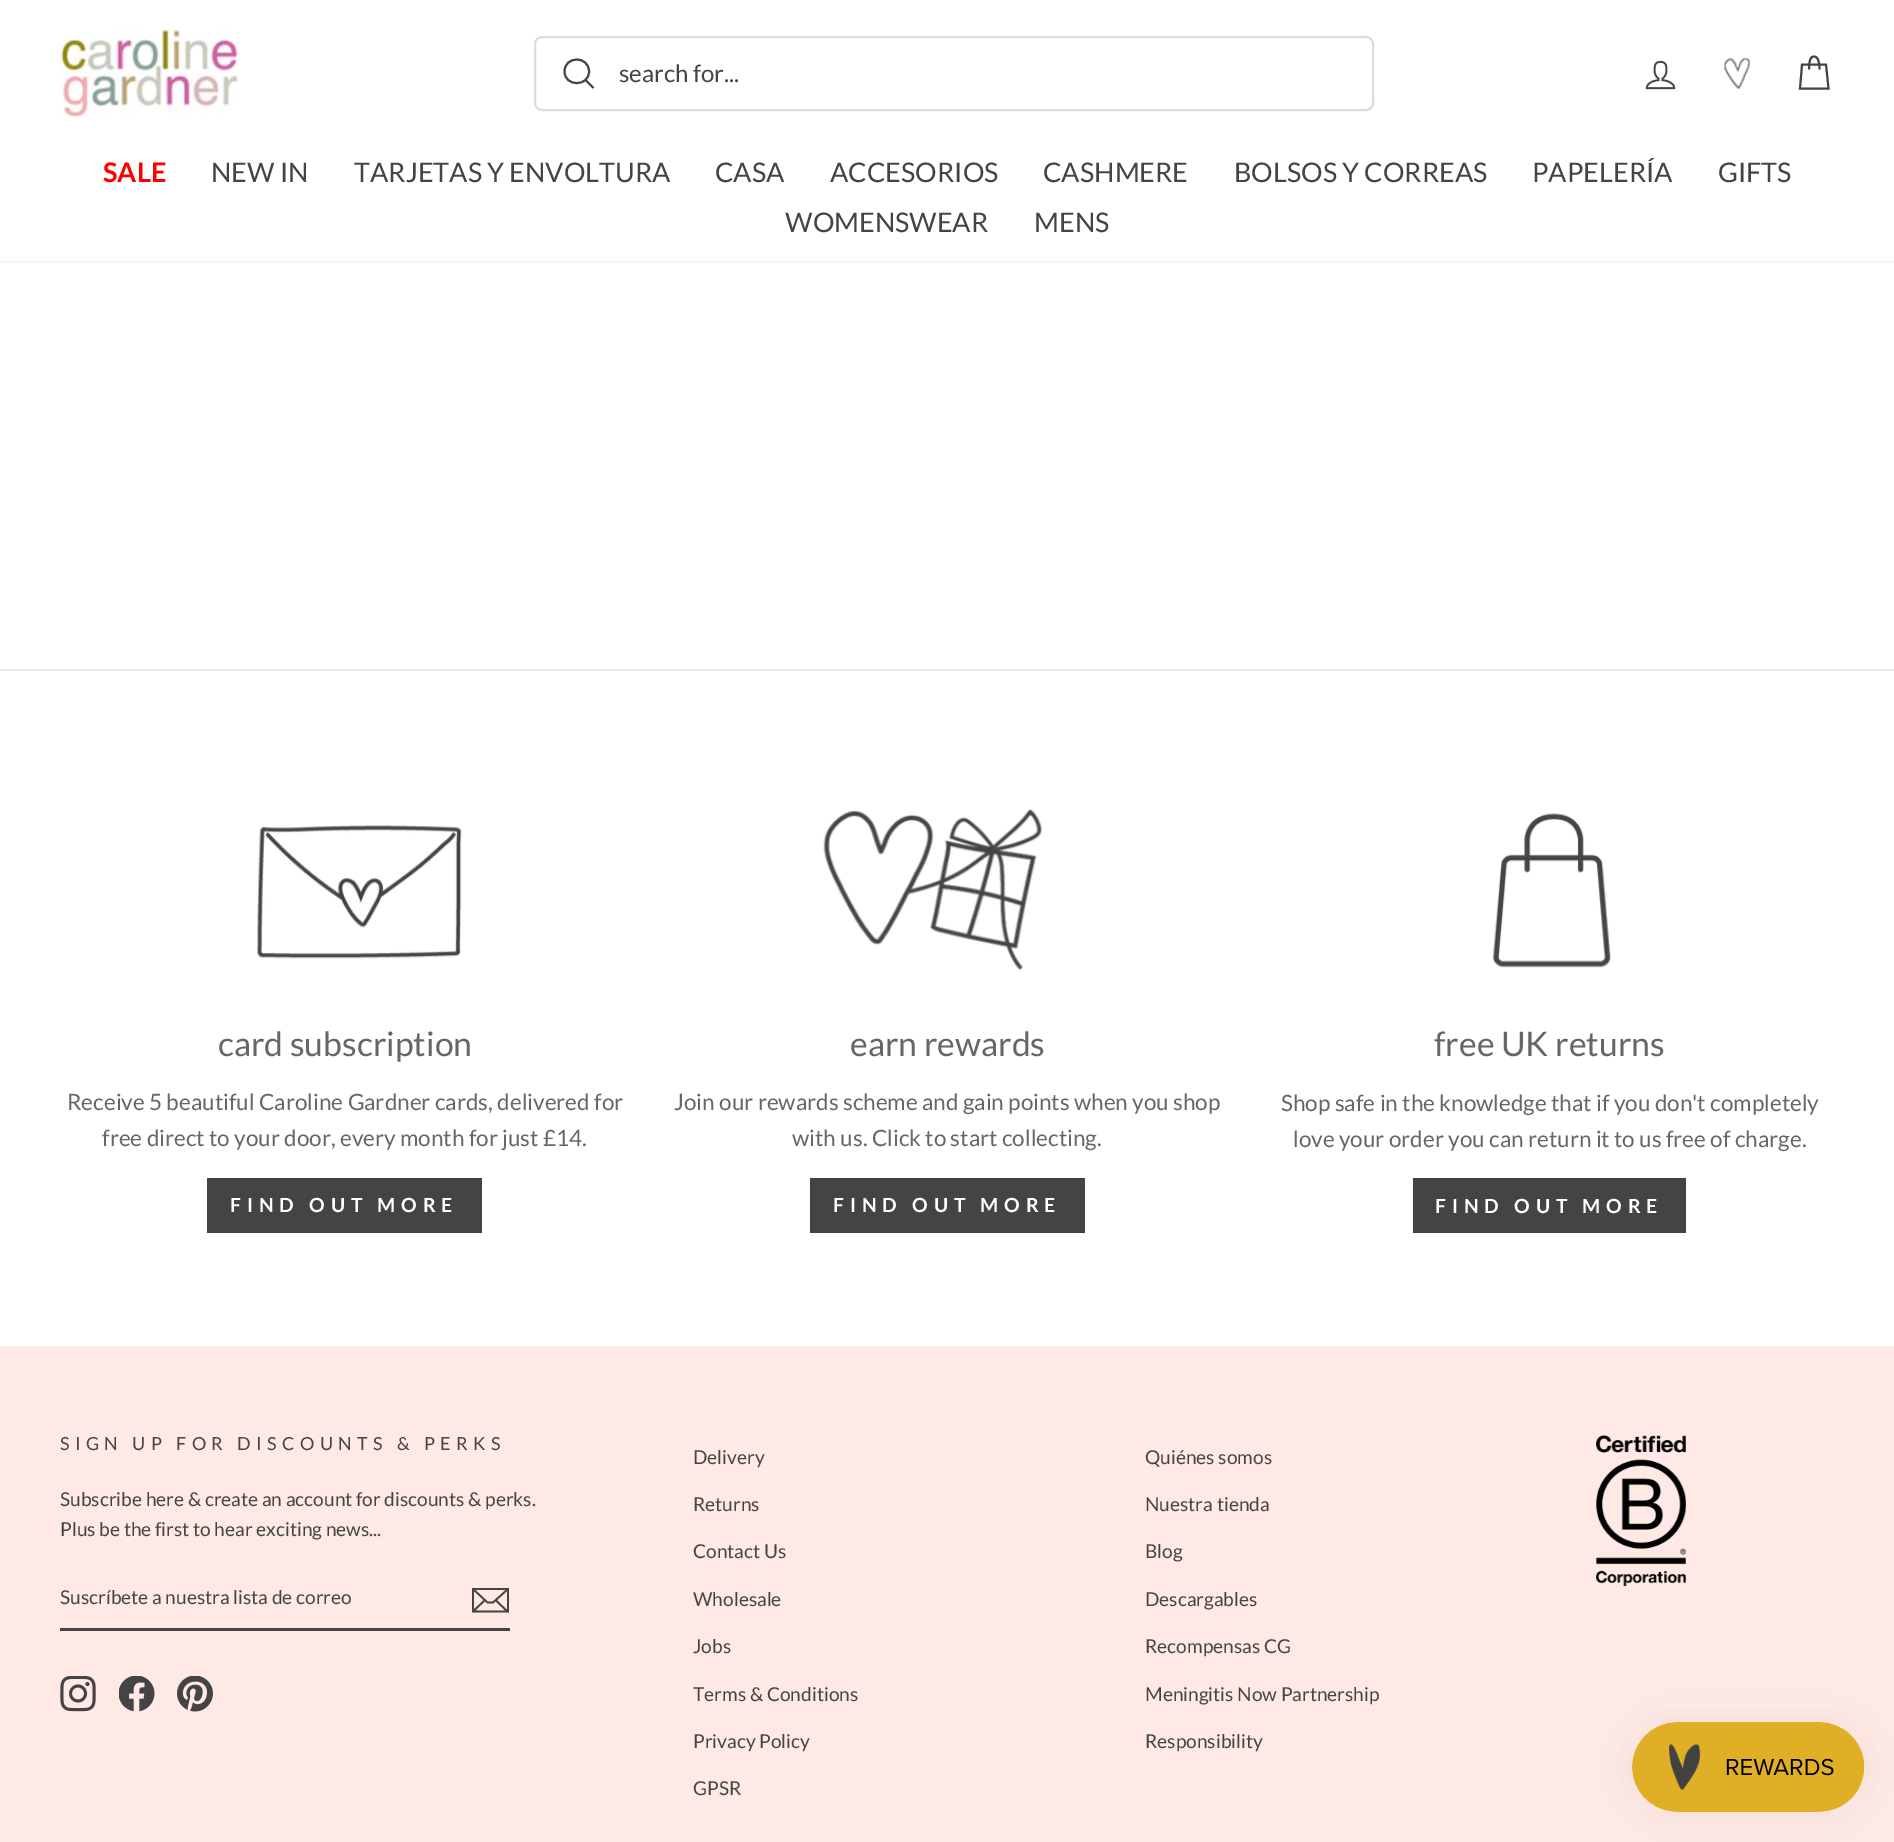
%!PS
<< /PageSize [1894 1842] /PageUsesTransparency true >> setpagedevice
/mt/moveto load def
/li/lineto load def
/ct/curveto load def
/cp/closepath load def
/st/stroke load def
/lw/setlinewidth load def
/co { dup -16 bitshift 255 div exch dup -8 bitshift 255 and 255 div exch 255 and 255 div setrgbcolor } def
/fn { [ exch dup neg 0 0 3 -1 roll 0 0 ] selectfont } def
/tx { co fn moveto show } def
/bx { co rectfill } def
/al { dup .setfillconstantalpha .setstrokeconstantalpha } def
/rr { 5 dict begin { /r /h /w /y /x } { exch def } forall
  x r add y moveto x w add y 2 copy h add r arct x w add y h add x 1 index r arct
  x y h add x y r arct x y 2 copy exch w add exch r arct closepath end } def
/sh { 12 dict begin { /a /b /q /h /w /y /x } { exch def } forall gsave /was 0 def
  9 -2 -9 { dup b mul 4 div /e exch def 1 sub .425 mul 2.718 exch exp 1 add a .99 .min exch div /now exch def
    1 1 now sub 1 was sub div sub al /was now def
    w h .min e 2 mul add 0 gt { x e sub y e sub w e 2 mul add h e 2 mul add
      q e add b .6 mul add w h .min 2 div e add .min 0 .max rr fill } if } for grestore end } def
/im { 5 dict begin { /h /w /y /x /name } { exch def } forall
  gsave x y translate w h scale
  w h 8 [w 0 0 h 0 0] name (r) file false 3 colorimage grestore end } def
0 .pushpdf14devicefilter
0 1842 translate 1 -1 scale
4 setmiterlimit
0 0 1894 1842 16#FFFFFF bx
16#000000 co
0 0 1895 261 0 1 .2 sh
0 0 1894 261 16#FFFFFF bx
(media/1.raw) 60 29 180 88 im
16#DDDDDD co
2 lw
535 37 838 73 7 rr st
16#444444 co
589 71.5 mt 589 87 564.5 87 564.5 71.5 ct 564.5 55.5 589 55.5 589 71.5 ct cp 593.5 88 mt 585.5 80 li st
(media/2.raw) 1645 60 31 30 im
(media/3.raw) 1724 58 26 31 im
1809 69.5 mt 1809 59 1811 56.5 1814 56.5 ct 1817 56.5 1819.5 59 1819.5 69.5 ct 1802 64.5 mt 1826 64.5 li 1828.5 88.5 li 1800 88.5 li cp st
0 669 1894 2 16#E8E8E1 bx
(media/4.raw) 257 825 205 134 im
207 1178 275 55 16#444444 bx
(media/5.raw) 823 809 220 162 im
810 1178 275 55 16#444444 bx
(media/6.raw) 1492 813 119 155 im
1413 1178 273 55 16#444444 bx
0 1346 1894 496 16#FFE9E5 bx
60 1628 450 3 16#444444 bx
1.7 lw
508 1611.5 mt 473 1611.5 li 473 1589 li 508 1589 li cp 473 1589 mt 487.5 1602.5 li 493 1602.5 li 508 1589 li 485 1600 mt 473.5 1611 li 507.5 1611.5 mt 495.5 1600 li st
(media/7.raw) 60 1676 36 36 im
(media/8.raw) 119 1676 36 36 im
(media/9.raw) 177 1676 36 36 im
(media/10.raw) 1596 1435 90 151 im
16#000000 co
1632 1722 233 90 45 19 .05 sh
(media/11.raw) 1632 1722 233 90 im
(search for...) 619 82 /Lato-Regular 24 16#444444 tx
(SALE) 103 182 /Lato-Bold 27 16#FF0000 tx
(NEW IN) 211 182 /Lato-Regular 27 16#444444 tx
(TARJETAS Y ENVOLTURA) 354 182 /Lato-Regular 27 16#444444 tx
(CASA) 715 182 /Lato-Regular 27 16#444444 tx
(ACCESORIOS) 830 182 /Lato-Regular 27 16#444444 tx
(CASHMERE) 1043 182 /Lato-Regular 27 16#444444 tx
(BOLSOS Y CORREAS) 1234 182 /Lato-Regular 27 16#444444 tx
(PAPELERÍA) 1532 182 /Lato-Regular 27 16#444444 tx
(GIFTS) 1718 182 /Lato-Regular 27 16#444444 tx
(WOMENSWEAR) 785 232 /Lato-Regular 27 16#444444 tx
(MENS) 1034 232 /Lato-Regular 27 16#444444 tx
(card subscription) 218 1056 /Lato-Regular 33.75 16#666666 tx
(Receive 5 beautiful Caroline Gardner cards, delivered for) 67 1110 /Lato-Regular 22.5 16#666666 tx
(free direct to your door, every month for just £14.) 102 1146 /Lato-Regular 22.5 16#666666 tx
/Lato-Bold 19.5 fn
16#FFFFFF co
230 1212 mt 5.8 0 (FIND OUT MORE) ashow
(earn rewards) 850 1056 /Lato-Regular 33.75 16#666666 tx
(Join our rewards scheme and gain points when you shop) 674 1110 /Lato-Regular 22.5 16#666666 tx
(with us. Click to start collecting.) 792 1146 /Lato-Regular 22.5 16#666666 tx
/Lato-Bold 19.5 fn
16#FFFFFF co
833 1212 mt 5.8 0 (FIND OUT MORE) ashow
(free UK returns) 1434 1056 /Lato-Regular 33.75 16#666666 tx
(Shop safe in the knowledge that if you don't completely) 1281 1111 /Lato-Regular 22.5 16#666666 tx
(love your order you can return it to us free of charge.) 1293 1147 /Lato-Regular 22.5 16#666666 tx
/Lato-Bold 19.5 fn
16#FFFFFF co
1435 1213 mt 5.8 0 (FIND OUT MORE) ashow
/Lato-Regular 18 fn
16#444444 co
60 1450 mt 5.4 0 (SIGN UP FOR DISCOUNTS & PERKS) ashow
(Subscribe here & create an account for discounts & perks.) 60 1506 /Lato-Regular 19.1 16#444444 tx
(Plus be the first to hear exciting news...) 60 1536 /Lato-Regular 19.1 16#444444 tx
(Suscríbete a nuestra lista de correo) 60 1604 /Lato-Regular 19.1 16#444444 tx
(Delivery) 693 1464 /Lato-Regular 19.1 16#444444 tx
(Returns) 693 1511 /Lato-Regular 19.1 16#444444 tx
(Contact Us) 693 1558 /Lato-Regular 19.1 16#444444 tx
(Wholesale) 693 1606 /Lato-Regular 19.1 16#444444 tx
(Jobs) 693 1653 /Lato-Regular 19.1 16#444444 tx
(Terms & Conditions) 693 1701 /Lato-Regular 19.1 16#444444 tx
(Privacy Policy) 693 1748 /Lato-Regular 19.1 16#444444 tx
(GPSR) 693 1795 /Lato-Regular 19.1 16#444444 tx
(Quiénes somos) 1145 1464 /Lato-Regular 19.1 16#444444 tx
(Nuestra tienda) 1145 1511 /Lato-Regular 19.1 16#444444 tx
(Blog) 1145 1558 /Lato-Regular 19.1 16#444444 tx
(Descargables) 1145 1606 /Lato-Regular 19.1 16#444444 tx
(Recompensas CG) 1145 1653 /Lato-Regular 19.1 16#444444 tx
(Meningitis Now Partnership) 1145 1701 /Lato-Regular 19.1 16#444444 tx
(Responsibility) 1145 1748 /Lato-Regular 19.1 16#444444 tx
.poppdf14devicefilter showpage
